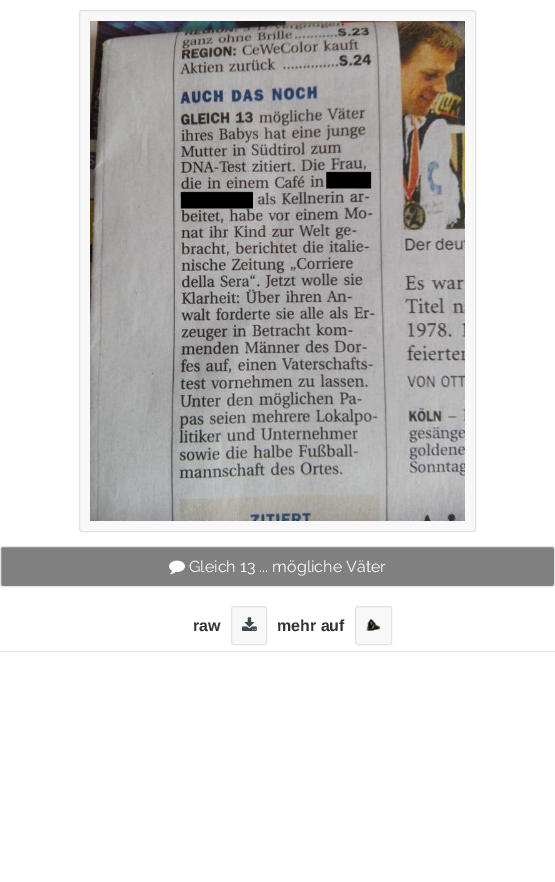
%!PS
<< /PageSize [555 882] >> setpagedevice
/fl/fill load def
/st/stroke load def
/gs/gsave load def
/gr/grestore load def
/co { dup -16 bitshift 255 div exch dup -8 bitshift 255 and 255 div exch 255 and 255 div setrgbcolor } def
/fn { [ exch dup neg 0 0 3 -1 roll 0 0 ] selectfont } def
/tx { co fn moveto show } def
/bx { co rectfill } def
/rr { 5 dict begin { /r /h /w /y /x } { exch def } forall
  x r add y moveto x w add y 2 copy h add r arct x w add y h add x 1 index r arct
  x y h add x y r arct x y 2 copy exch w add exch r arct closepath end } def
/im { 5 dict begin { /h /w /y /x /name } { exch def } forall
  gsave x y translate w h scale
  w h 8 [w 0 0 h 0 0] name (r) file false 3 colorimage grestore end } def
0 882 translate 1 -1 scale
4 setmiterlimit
0 0 555 882 16#FFFFFF bx
16#F8F8F8 co
79.5 10.5 396 521 2.5 rr gs fl gr
16#E2E2E2 co
st
(media/1.raw) 90 21 375 500 im
16#808080 co
.5 546.5 554 40 2.5 rr gs fl gr
16#E2E2E2 co
st
(media/2.raw) 169 560 16 15 im
0 651 555 1 16#E7E7E7 bx
16#F8F8F8 co
231.5 606.5 35 38 2.5 rr gs fl gr
16#E2E2E2 co
st
(media/3.raw) 242 617 15 14 im
16#F8F8F8 co
355.5 606.5 36 38 2.5 rr gs fl gr
16#E2E2E2 co
st
(media/4.raw) 366 619 15 12 im
(Gleich 13 ... mögliche Väter) 189 572 /Raleway-Regular 16 16#FEFEFE tx
(raw) 193 631 /LiberationSans-Bold 16 16#333333 tx
(mehr auf) 277 631 /LiberationSans-Bold 16 16#333333 tx
showpage
